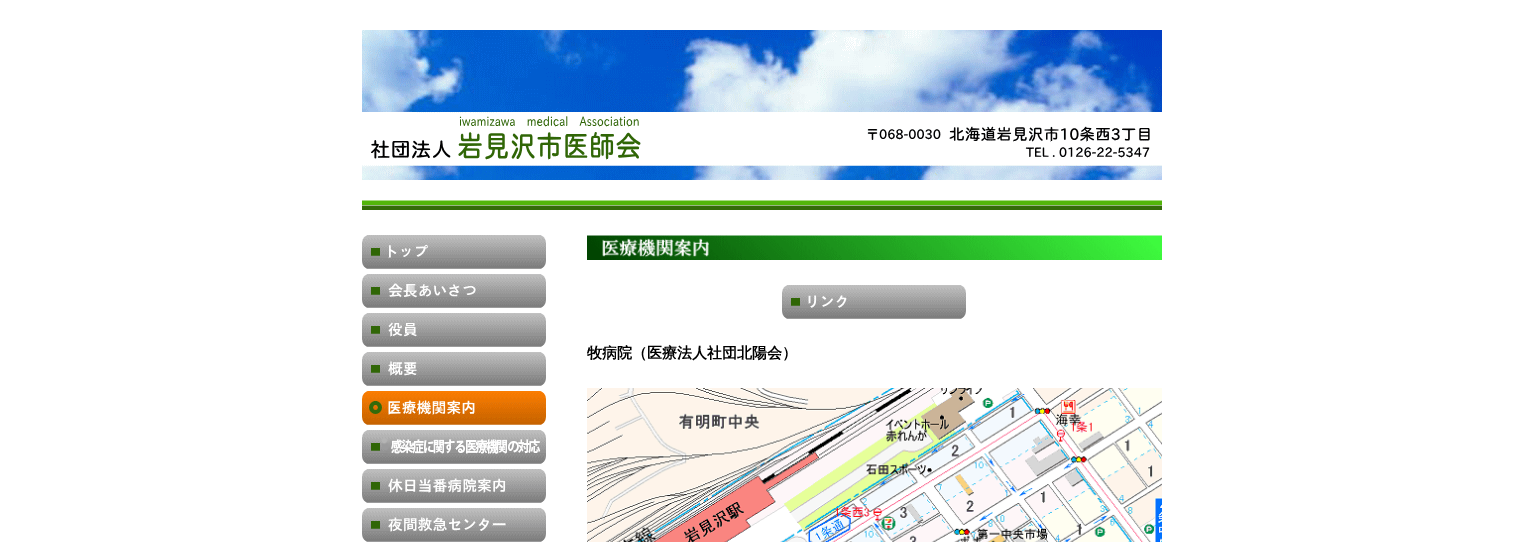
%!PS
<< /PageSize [1523 542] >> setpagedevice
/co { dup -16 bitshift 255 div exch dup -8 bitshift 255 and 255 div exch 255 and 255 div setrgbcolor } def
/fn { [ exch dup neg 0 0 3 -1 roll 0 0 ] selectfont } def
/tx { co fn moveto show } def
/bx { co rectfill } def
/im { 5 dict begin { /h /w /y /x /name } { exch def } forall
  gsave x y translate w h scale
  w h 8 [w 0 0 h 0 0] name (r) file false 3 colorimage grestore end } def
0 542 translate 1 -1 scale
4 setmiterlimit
0 0 1523 542 16#FFFFFF bx
(media/1.raw) 362 200 800 10 im
(media/2.raw) 362 30 800 150 im
(media/3.raw) 362 235 184 34 im
(media/4.raw) 362 274 184 34 im
(media/5.raw) 362 313 184 34 im
(media/6.raw) 362 352 184 34 im
(media/7.raw) 362 391 184 34 im
(media/8.raw) 362 430 184 34 im
(media/9.raw) 362 469 184 34 im
(media/10.raw) 362 508 184 34 im
(media/11.raw) 587 235 575 25 im
(media/12.raw) 782 285 184 34 im
(media/13.raw) 587 388 575 154 im
(牧病院（医療法人社団北陽会）) 587 358 /WenQuanYiZenHei-Bold 15 16#000000 tx
showpage
